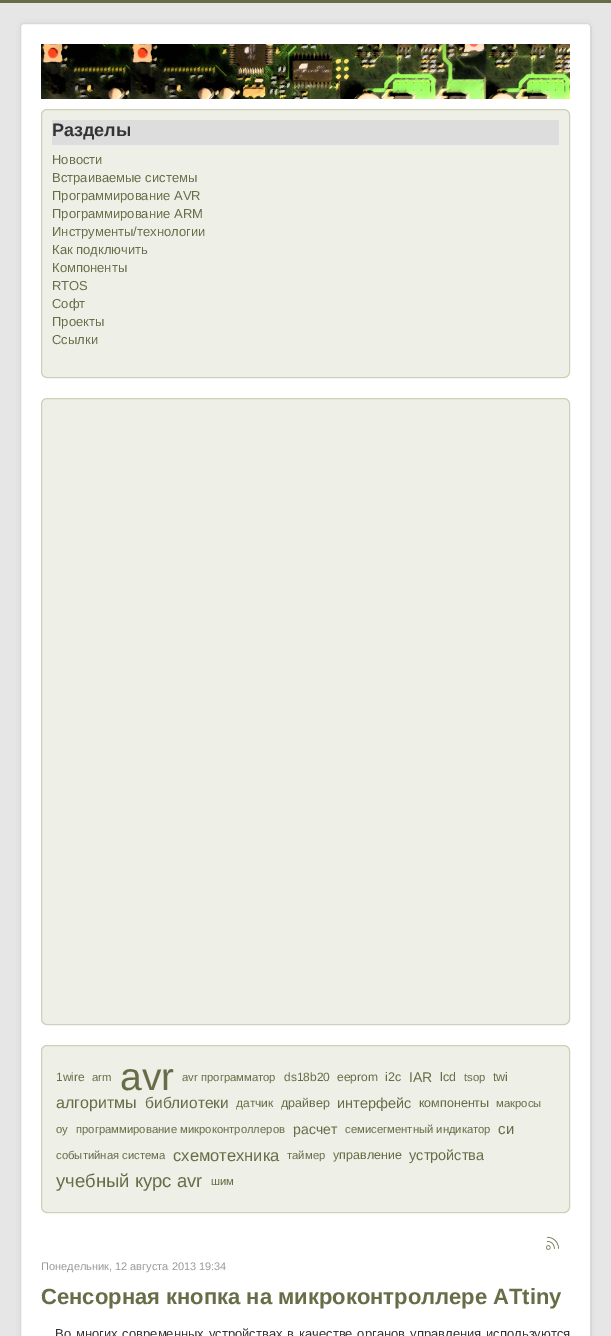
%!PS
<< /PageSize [611 1336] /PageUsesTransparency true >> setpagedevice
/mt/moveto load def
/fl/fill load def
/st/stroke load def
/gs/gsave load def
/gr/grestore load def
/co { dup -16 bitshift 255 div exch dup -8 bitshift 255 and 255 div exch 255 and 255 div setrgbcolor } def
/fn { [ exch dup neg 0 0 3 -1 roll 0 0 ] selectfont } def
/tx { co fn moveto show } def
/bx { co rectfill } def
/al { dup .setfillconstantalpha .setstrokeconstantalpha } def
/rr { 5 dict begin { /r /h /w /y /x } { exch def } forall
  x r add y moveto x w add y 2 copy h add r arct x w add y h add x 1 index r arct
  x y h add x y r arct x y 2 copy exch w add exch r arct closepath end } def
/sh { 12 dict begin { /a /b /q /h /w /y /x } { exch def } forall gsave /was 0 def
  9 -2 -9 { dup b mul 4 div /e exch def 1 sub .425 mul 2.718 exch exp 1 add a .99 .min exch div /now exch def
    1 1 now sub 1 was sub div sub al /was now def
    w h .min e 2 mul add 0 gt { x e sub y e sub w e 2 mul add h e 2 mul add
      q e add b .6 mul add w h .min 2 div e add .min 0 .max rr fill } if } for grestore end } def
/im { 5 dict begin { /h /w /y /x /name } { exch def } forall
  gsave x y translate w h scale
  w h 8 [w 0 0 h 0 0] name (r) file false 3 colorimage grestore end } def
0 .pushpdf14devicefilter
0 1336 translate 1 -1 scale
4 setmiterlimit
0 0 611 1336 16#E6E6E6 bx
0 0 611 3 16#686C47 bx
16#000000 co
20 23 571 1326 4 3 .05 sh
16#FFFFFF co
20 23 571 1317 4 rr fl
0.15 al
16#000000 co
20.5 23.5 570 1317 3.5 rr st
1 al
(media/1.raw) 41 44 529 55 im
16#EEEFE6 co
41.5 109.5 528 268 5.5 rr gs fl gr
16#CED1B8 co
st
52 120 507 25 16#DDDDDD bx
52 145 507 1 16#EEEEEE bx
16#EEEFE6 co
41.5 398.5 528 626 5.5 rr gs fl gr
16#CED1B8 co
st
16#EEEFE6 co
41.5 1045.5 528 167 5.5 rr gs fl gr
16#CED1B8 co
st
(media/2.raw) 546 1236 13 14 im
(Разделы) 52 136 /LiberationSans-Bold 18 16#333333 tx
(Новости) 52 164 /LiberationSans-Regular 13 16#686C47 tx
(Встраиваемые системы) 52 182 /LiberationSans-Regular 13 16#686C47 tx
(Программирование AVR) 52 200 /LiberationSans-Regular 13 16#686C47 tx
(Программирование ARM) 52 218 /LiberationSans-Regular 13 16#686C47 tx
(Инструменты/технологии) 52 236 /LiberationSans-Regular 13 16#686C47 tx
(Как подключить) 52 254 /LiberationSans-Regular 13 16#686C47 tx
(Компоненты) 52 272 /LiberationSans-Regular 13 16#686C47 tx
(RTOS) 52 290 /LiberationSans-Regular 13 16#686C47 tx
(Софт) 52 308 /LiberationSans-Regular 13 16#686C47 tx
(Проекты) 52 326 /LiberationSans-Regular 13 16#686C47 tx
(Ссылки) 52 344 /LiberationSans-Regular 13 16#686C47 tx
(1wire) 56 1081 /LiberationSans-Regular 12 16#686C47 tx
(arm) 92 1081 /LiberationSans-Regular 11.3 16#686C47 tx
(avr) 120 1090 /LiberationSans-Regular 39 16#686C47 tx
(avr программатор) 182 1081 /LiberationSans-Regular 11.3 16#686C47 tx
(ds18b20) 284 1081 /LiberationSans-Regular 12 16#686C47 tx
(eeprom) 337 1081 /LiberationSans-Regular 12 16#686C47 tx
(i2c) 385 1081 /LiberationSans-Regular 12.5 16#686C47 tx
(IAR) 409 1082 /LiberationSans-Regular 14 16#686C47 tx
(lcd) 440 1081 /LiberationSans-Regular 12.5 16#686C47 tx
(tsop) 464 1081 /LiberationSans-Regular 11.3 16#686C47 tx
(twi) 493 1081 /LiberationSans-Regular 12.5 16#686C47 tx
(алгоритмы) 56 1108 /LiberationSans-Regular 16 16#686C47 tx
(библиотеки) 145 1108 /LiberationSans-Regular 15.5 16#686C47 tx
(датчик) 236 1107 /LiberationSans-Regular 12 16#686C47 tx
(драйвер) 281 1107 /LiberationSans-Regular 12.5 16#686C47 tx
(интерфейс) 337 1108 /LiberationSans-Regular 14.5 16#686C47 tx
(компоненты) 419 1107 /LiberationSans-Regular 12.5 16#686C47 tx
(макросы) 496 1107 /LiberationSans-Regular 11.3 16#686C47 tx
(оу) 56 1133 /LiberationSans-Regular 11.3 16#686C47 tx
(программирование микроконтроллеров) 76 1133 /LiberationSans-Regular 11.3 16#686C47 tx
(расчет) 293 1134 /LiberationSans-Regular 14 16#686C47 tx
(семисегментный индикатор) 345 1133 /LiberationSans-Regular 11.3 16#686C47 tx
(си) 498 1134 /LiberationSans-Regular 15 16#686C47 tx
(событийная система) 56 1159 /LiberationSans-Regular 11.3 16#686C47 tx
(схемотехника) 173 1161 /LiberationSans-Regular 16.5 16#686C47 tx
(таймер) 287 1159 /LiberationSans-Regular 11.3 16#686C47 tx
(управление) 333 1159 /LiberationSans-Regular 12.5 16#686C47 tx
(устройства) 409 1160 /LiberationSans-Regular 14.5 16#686C47 tx
(учебный курс avr) 56 1187 /LiberationSans-Regular 18.5 16#686C47 tx
(шим) 211 1185 /LiberationSans-Regular 11.3 16#686C47 tx
(Понедельник, 12 августа 2013 19:34) 41 1270 /LiberationSans-Regular 11 16#999999 tx
(Сенсорная кнопка на микроконтроллере ATtiny) 41 1304 /LiberationSans-Bold 22 16#686C47 tx
/LiberationSans-Regular 13 fn
16#333333 co
55 1338 mt 1.25 0 32 (Во многих современных устройствах в качестве органов управления используются) widthshow
.poppdf14devicefilter showpage
